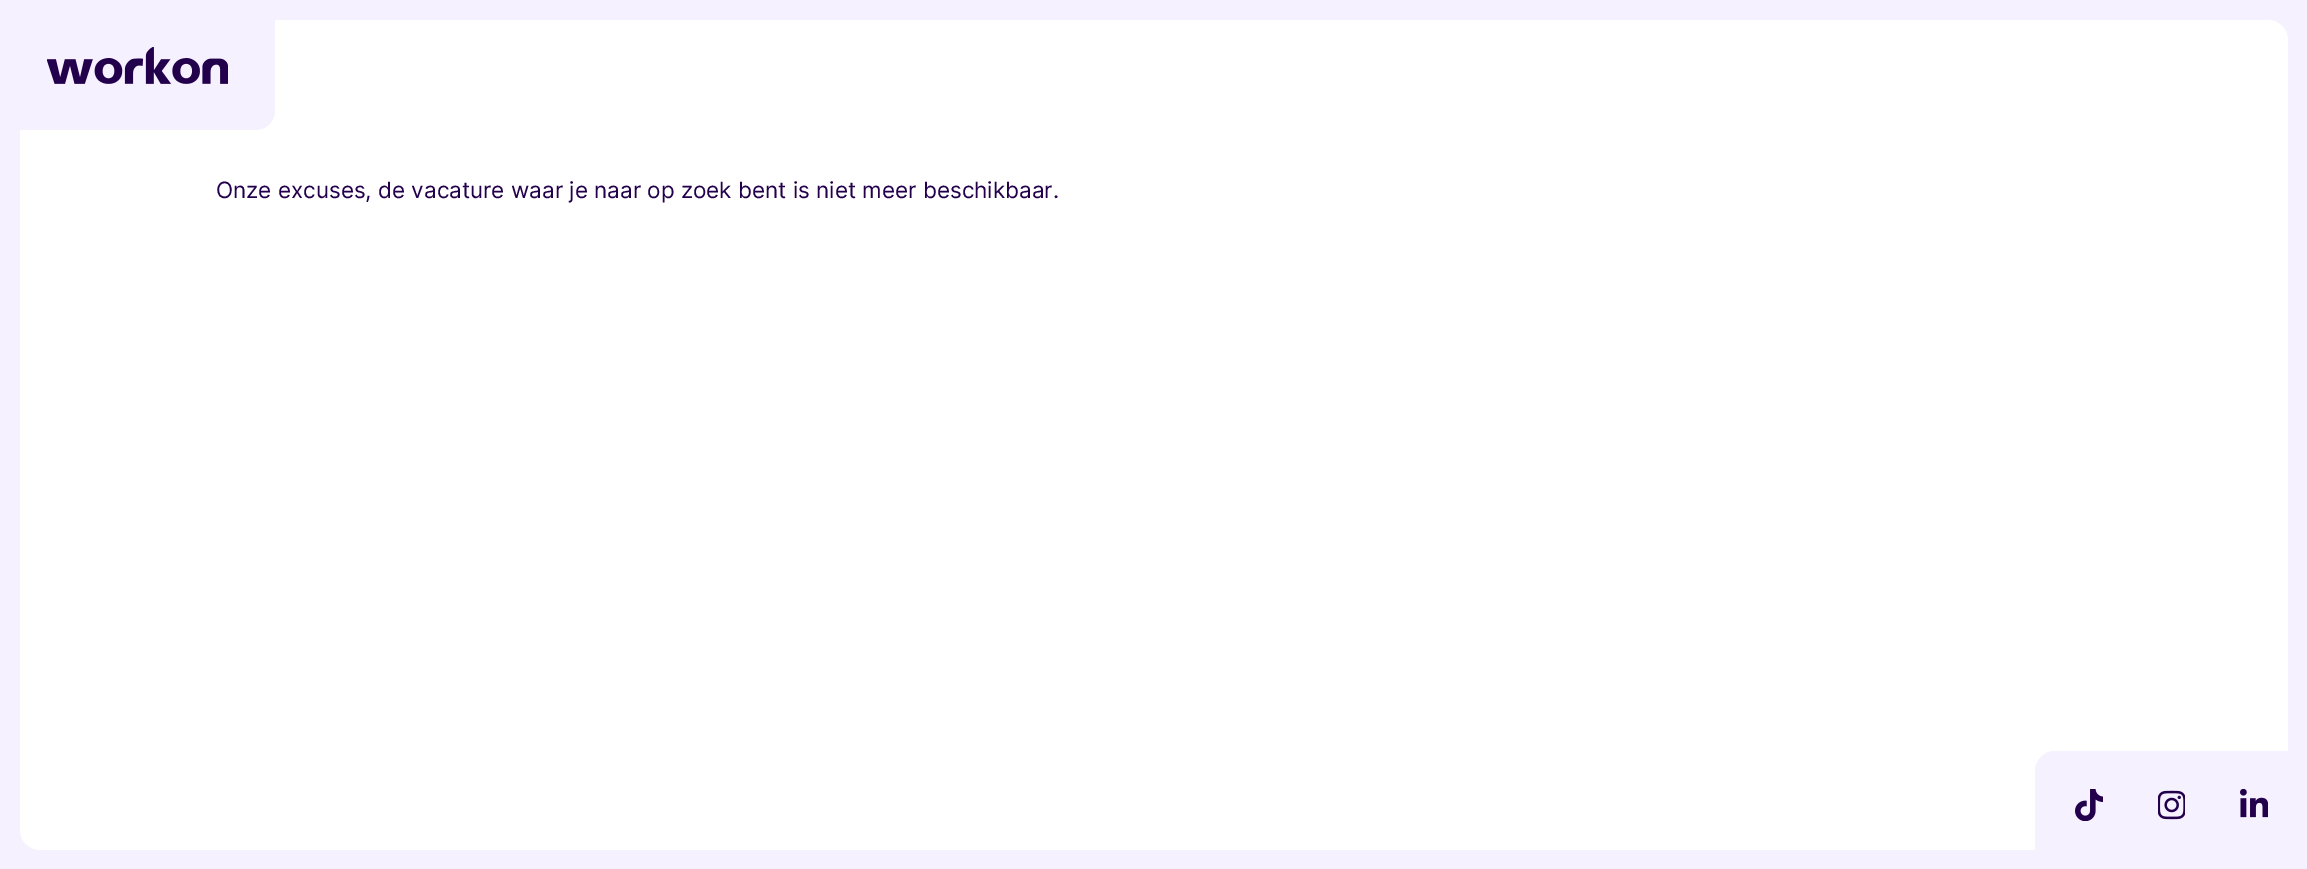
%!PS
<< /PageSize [2307 869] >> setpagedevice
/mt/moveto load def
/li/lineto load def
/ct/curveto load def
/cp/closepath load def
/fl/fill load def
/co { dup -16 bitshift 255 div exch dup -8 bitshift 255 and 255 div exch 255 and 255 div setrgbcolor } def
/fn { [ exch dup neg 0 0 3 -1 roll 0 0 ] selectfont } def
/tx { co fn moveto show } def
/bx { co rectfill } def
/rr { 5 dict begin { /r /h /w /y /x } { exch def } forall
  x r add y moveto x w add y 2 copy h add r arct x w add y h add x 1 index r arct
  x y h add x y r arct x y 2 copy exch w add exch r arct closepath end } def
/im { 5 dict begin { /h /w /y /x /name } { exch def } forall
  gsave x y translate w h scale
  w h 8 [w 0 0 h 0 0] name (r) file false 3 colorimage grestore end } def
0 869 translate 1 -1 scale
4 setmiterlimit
0 0 2307 869 16#F5F1FF bx
16#FFFFFF co
20 20 2268 830 20 rr fl
(media/1.raw) 20 20 255 110 im
16#F5F1FF co
2055 751 mt 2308 751 li 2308 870 li 2035 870 li 2035 771 li 2035 760 2044 751 2055 751 ct cp fl
(media/2.raw) 2075 789 28 32 im
(media/3.raw) 2158 790 27 30 im
(media/4.raw) 2240 789 28 29 im
(Onze excuses, de vacature waar je naar op zoek bent is niet meer beschikbaar.) 216 198 /Inter-Regular 22.5 16#23004C tx
showpage
